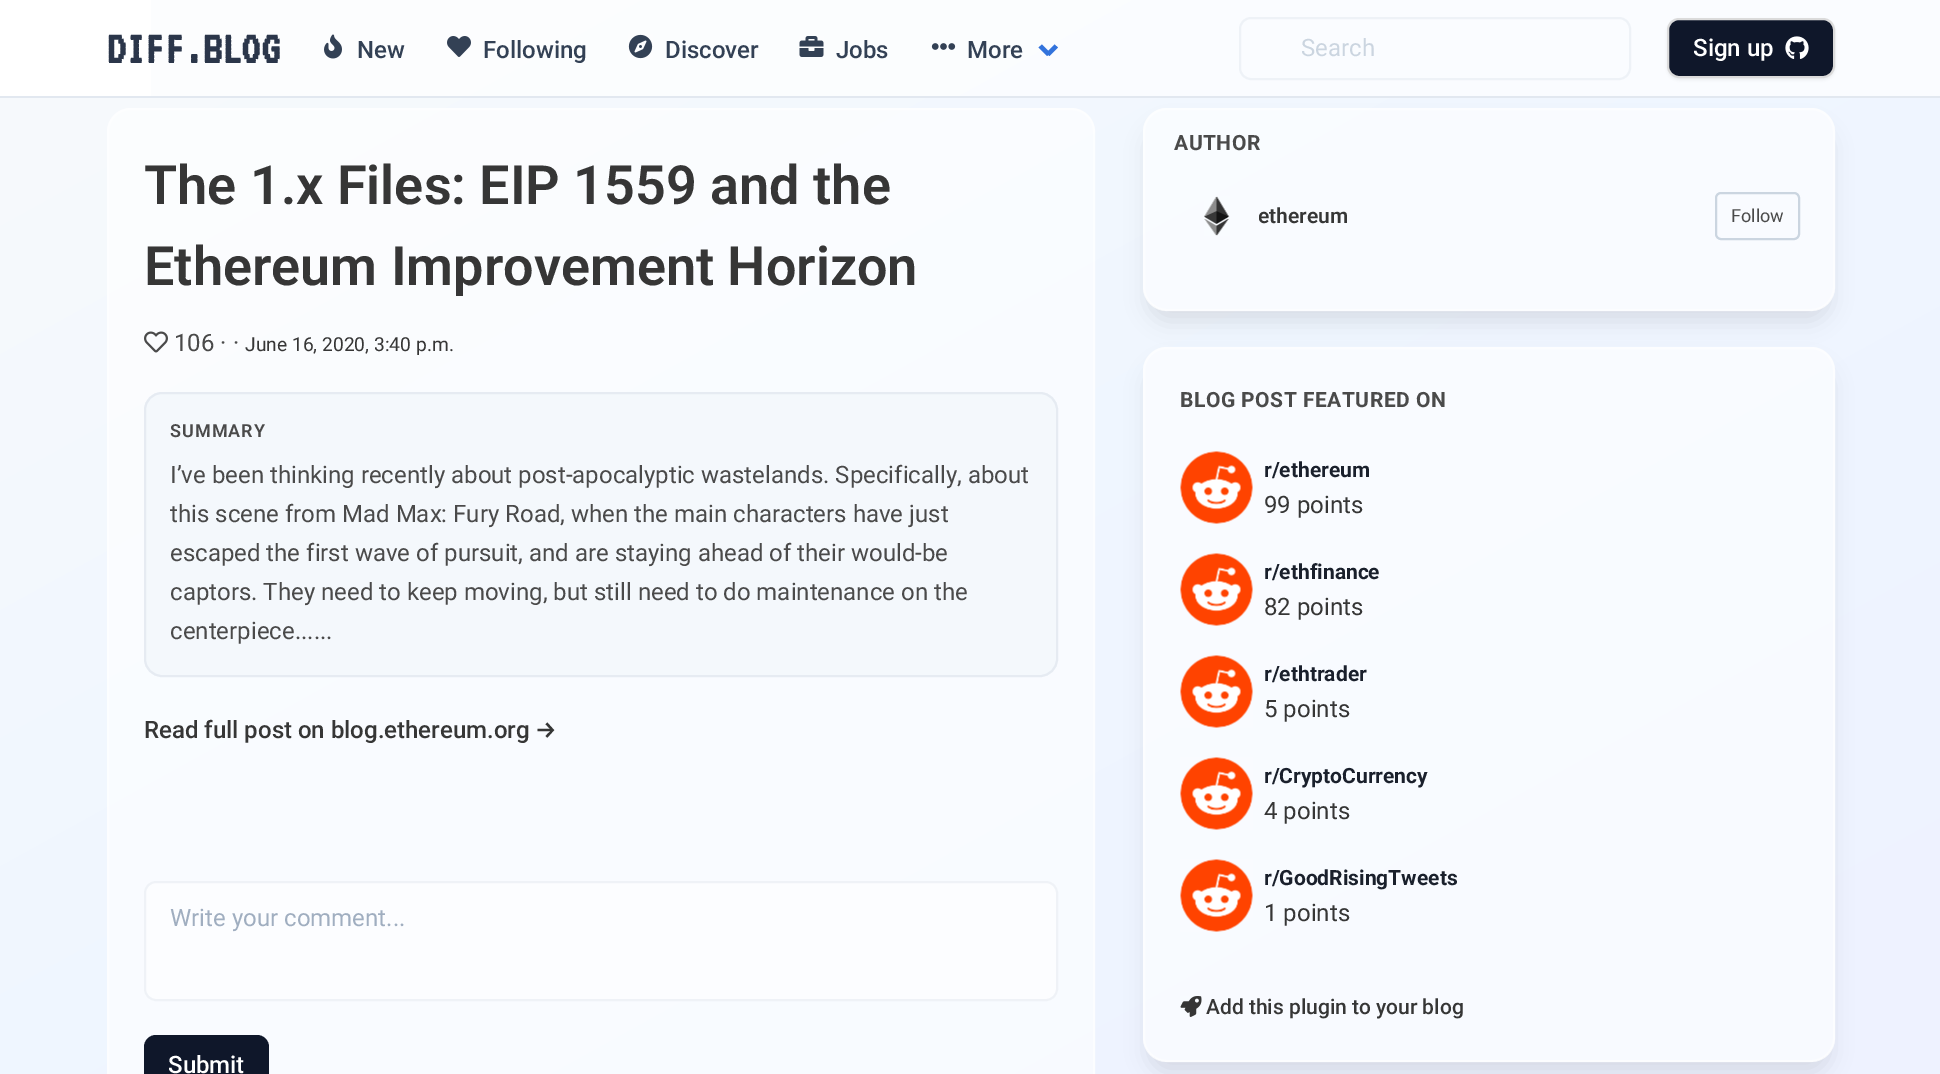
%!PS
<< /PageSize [1940 1074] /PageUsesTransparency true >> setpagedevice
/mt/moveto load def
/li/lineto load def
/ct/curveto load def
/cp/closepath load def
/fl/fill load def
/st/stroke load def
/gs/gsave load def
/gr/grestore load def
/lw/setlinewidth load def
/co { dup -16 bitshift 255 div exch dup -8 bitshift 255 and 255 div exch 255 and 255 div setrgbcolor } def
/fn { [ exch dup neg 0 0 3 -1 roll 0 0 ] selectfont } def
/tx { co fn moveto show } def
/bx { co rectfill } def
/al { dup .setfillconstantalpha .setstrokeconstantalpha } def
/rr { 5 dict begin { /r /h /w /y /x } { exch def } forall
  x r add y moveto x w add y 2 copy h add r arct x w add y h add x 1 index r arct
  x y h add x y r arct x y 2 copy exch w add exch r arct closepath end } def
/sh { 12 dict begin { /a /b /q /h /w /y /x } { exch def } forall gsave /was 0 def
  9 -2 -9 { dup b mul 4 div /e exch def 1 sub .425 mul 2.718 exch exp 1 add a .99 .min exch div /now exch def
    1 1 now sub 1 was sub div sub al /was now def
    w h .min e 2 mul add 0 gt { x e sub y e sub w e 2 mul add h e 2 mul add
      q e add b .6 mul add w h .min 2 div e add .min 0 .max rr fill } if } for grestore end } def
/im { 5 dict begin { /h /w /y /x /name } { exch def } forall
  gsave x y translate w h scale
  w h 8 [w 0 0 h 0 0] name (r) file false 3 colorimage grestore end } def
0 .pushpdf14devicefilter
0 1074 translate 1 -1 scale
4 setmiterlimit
0 0 1940 1074 16#FFFFFF bx
gs 0 98 mt 1940 98 li 1940 1074 li 0 1074 li cp clip newpath
<< /ShadingType 2 /ColorSpace /DeviceRGB /Coords [516 -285 1425 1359] /Extend [true true] /Function << /FunctionType 3 /Domain [0 1] /Functions [<< /FunctionType 2 /Domain [0 1] /C0 [.973 .98 .988] /C1 [.937 .965 1] /N 1 >> << /FunctionType 2 /Domain [0 1] /C0 [.937 .965 1] /C1 [.933 .949 1] /N 1 >>] /Bounds [.5] /Encode [0 1 0 1] >> >> shfill gr
gs 151 0 mt 1940 0 li 1940 96 li 151 96 li cp clip newpath
<< /ShadingType 2 /ColorSpace /DeviceRGB /Coords [516 -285 1425 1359] /Extend [true true] /Function << /FunctionType 3 /Domain [0 1] /Functions [<< /FunctionType 2 /Domain [0 1] /C0 [.992 .996 .996] /C1 [.98 .988 1] /N 1 >> << /FunctionType 2 /Domain [0 1] /C0 [.98 .988 1] /C1 [.98 .984 1] /N 1 >>] /Bounds [.5] /Encode [0 1 0 1] >> >> shfill gr
gs
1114 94 mt 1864 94 li 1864 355 li 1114 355 li cp 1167 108 mt 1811 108 li 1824.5 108 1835 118.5 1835 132 ct 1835 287 li 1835 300.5 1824.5 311 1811 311 ct 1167 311 li 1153.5 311 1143 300.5 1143 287 ct 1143 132 li 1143 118.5 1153.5 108 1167 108 ct cp eoclip newpath
16#000000 co
1148 128 682 193 20 11 .1 sh
gr
0 96 1940 2 16#E2E8F0 bx
(media/1.raw) 324 34 18 25 im
(media/2.raw) 447 36 24 21 im
(media/3.raw) 628 34 25 25 im
(media/4.raw) 799 36 25 21 im
(media/5.raw) 931 43 25 7 im
16#3273DC co
1046 53 mt 1054.5 44.5 li 1058 47.5 li 1049.5 56 li cp fl
1038.5 47.5 mt 1042 44.5 li 1050.5 53 li 1047 56 li cp fl
0.5 al
16#E2E8F0 co
2 lw
1240 18 390 61 11 rr st
1 al
16#000000 co
1667 20 168 60 12 1.5 .05 sh
16#0F172A co
1668 19 166 58 11 rr gs fl gr
16#DBDBDB co
st
(media/6.raw) 1785 36 24 23 im
0.6 al
16#FFFFFF co
107 108 988 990 24 rr fl
0.5 al
108 109 986 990 23 rr st
1 al
(media/7.raw) 144 331 24 22 im
16#F4F8FC co
144 392 914 285 18 rr fl
0.8 al
16#E2E8F0 co
145 393 912 283 17 rr st
0.5 al
16#FFFFFF co
144 881 914 120 12 rr fl
16#E2E8F0 co
145 882 912 118 11 rr st
1 al
16#0F172A co
144 1035 125 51 12 rr fl
0.6 al
16#FFFFFF co
1143 108 692 203 24 rr fl
0.5 al
1144 109 690 201 23 rr st
1 al
(media/8.raw) 1204 196 26 40 im
16#CBD5E0 co
1716 193 83 46 5 rr st
gs
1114 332 mt 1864 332 li 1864 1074 li 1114 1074 li cp 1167 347 mt 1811 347 li 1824.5 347 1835 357.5 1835 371 ct 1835 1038 li 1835 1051.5 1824.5 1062 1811 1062 ct 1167 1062 li 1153.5 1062 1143 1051.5 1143 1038 ct 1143 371 li 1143 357.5 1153.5 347 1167 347 ct cp eoclip newpath
16#000000 co
1148 366 682 707 20 11 .1 sh
gr
0.6 al
16#FFFFFF co
1143 347 692 715 24 rr fl
0.5 al
1144 348 690 713 23 rr st
1 al
(media/9.raw) 1180 451 73 73 im
(media/10.raw) 1180 553 73 73 im
(media/10.raw) 1180 655 73 73 im
(media/11.raw) 1180 757 73 73 im
(media/12.raw) 1180 859 73 73 im
(media/13.raw) 1180 996 22 21 im
(DIFF.BLOG) 107 63 /VT323-Bold 48 16#2B364A tx
(New) 357 58 /Roboto-Medium 24 16#334155 tx
(Following) 483 58 /Roboto-Medium 24 16#334155 tx
(Discover) 665 58 /Roboto-Medium 24 16#334155 tx
(Jobs) 836 58 /Roboto-Medium 24 16#334155 tx
(More) 967 58 /Roboto-Medium 24 16#334155 tx
(Search) 1301 56 /Roboto-Regular 24 16#CBD5E0 tx
(Sign up) 1693 56 /Roboto-Medium 24 16#FFFFFF tx
(The 1.x Files: EIP 1559 and the) 144 204 /Roboto-SemiBold 54 16#363636 tx
(Ethereum Improvement Horizon) 144 285 /Roboto-SemiBold 54 16#363636 tx
(106 · ·) 174 351 /Roboto-Regular 24 16#4A4A4A tx
(June 16, 2020, 3:40 p.m.) 245 351 /Roboto-Regular 19.25 16#363636 tx
/Roboto-SemiBold 18 fn
16#4A4A4A co
170 437 mt 1 0 (SUMMARY) ashow
(I’ve been thinking recently about post-apocalyptic wastelands. Specifically, about) 170 483 /Roboto-Regular 24 16#4A4A4A tx
(this scene from Mad Max: Fury Road, when the main characters have just) 170 522 /Roboto-Regular 24 16#4A4A4A tx
(escaped the first wave of pursuit, and are staying ahead of their would-be) 170 561 /Roboto-Regular 24 16#4A4A4A tx
(captors. They need to keep moving, but still need to do maintenance on the) 170 600 /Roboto-Regular 24 16#4A4A4A tx
(centerpiece......) 170 639 /Roboto-Regular 24 16#4A4A4A tx
(Read full post on blog.ethereum.org) 144 738 /Roboto-Medium 24 16#363636 tx
(→) 535 738 /FiraSans-Medium 24 16#363636 tx
(Write your comment...) 170 926 /Roboto-Regular 24 16#A0AEC0 tx
(Submit) 168 1073 /Roboto-Medium 24 16#FFFFFF tx
/Roboto-Bold 21 fn
16#4A4A4A co
1174 150 mt .5 0 (AUTHOR) ashow
gs
1259 201 456 32 rectclip
(ethereum) 1258 223 /Roboto-SemiBold 21 16#363636 tx
gr
(Follow) 1731 222 /Roboto-Regular 18 16#4A4A4A tx
/Roboto-Bold 21 fn
1180 407 mt .5 0 (BLOG POST FEATURED ON) ashow
(r/ethereum) 1264 477 /Roboto-Bold 21 16#1A202C tx
(99 points) 1264 513 /Roboto-Regular 24 16#363636 tx
(r/ethfinance) 1264 579 /Roboto-Bold 21 16#1A202C tx
(82 points) 1264 615 /Roboto-Regular 24 16#363636 tx
(r/ethtrader) 1264 681 /Roboto-Bold 21 16#1A202C tx
(5 points) 1264 717 /Roboto-Regular 24 16#363636 tx
(r/CryptoCurrency) 1264 783 /Roboto-Bold 21 16#1A202C tx
(4 points) 1264 819 /Roboto-Regular 24 16#363636 tx
(r/GoodRisingTweets) 1264 885 /Roboto-Bold 21 16#1A202C tx
(1 points) 1264 921 /Roboto-Regular 24 16#363636 tx
(Add this plugin to your blog) 1206 1014 /Roboto-Medium 21 16#363636 tx
.poppdf14devicefilter showpage
